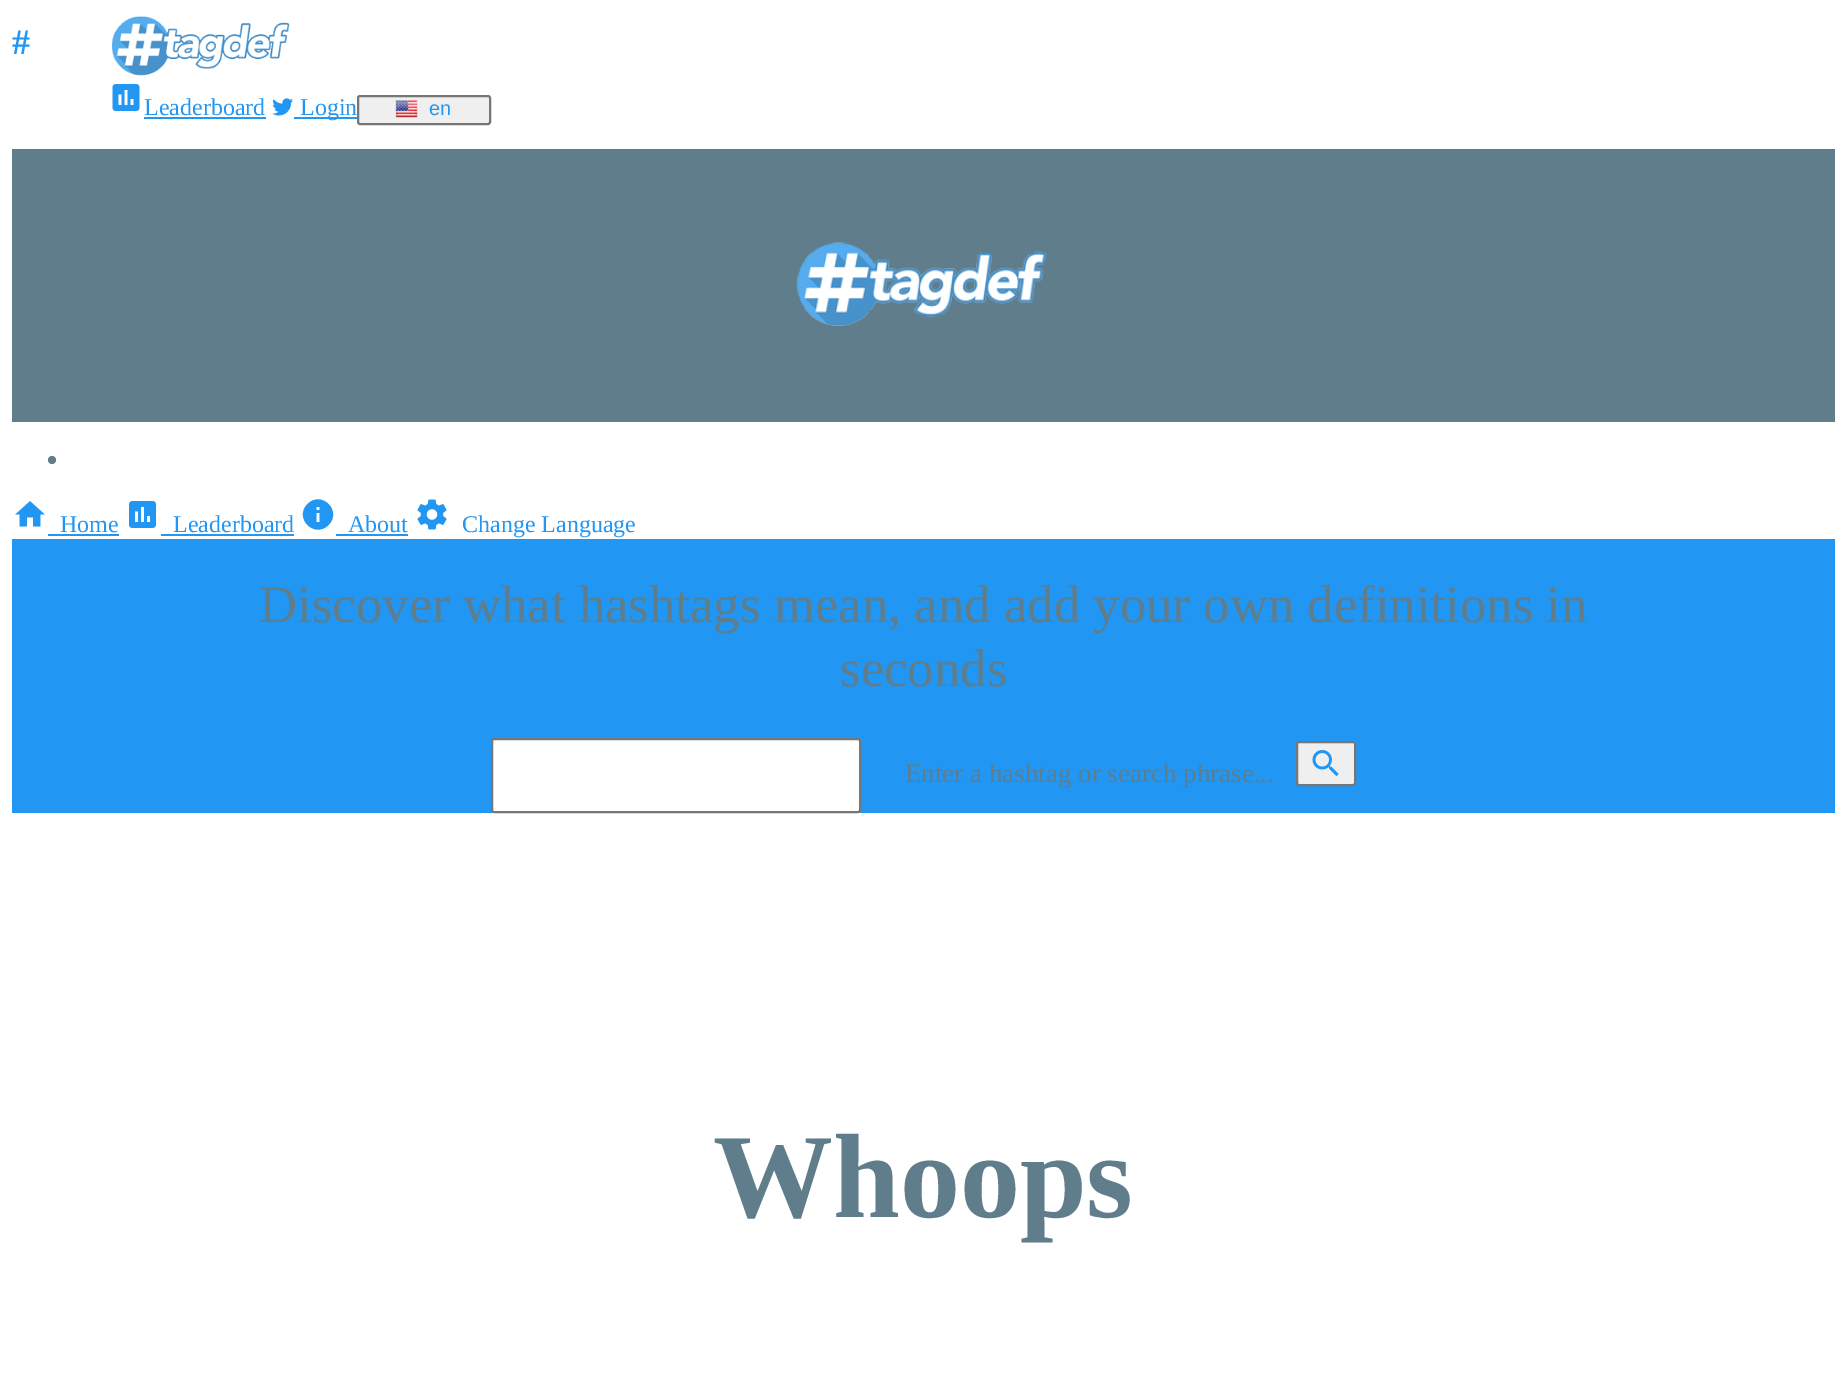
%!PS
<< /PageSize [1846 1388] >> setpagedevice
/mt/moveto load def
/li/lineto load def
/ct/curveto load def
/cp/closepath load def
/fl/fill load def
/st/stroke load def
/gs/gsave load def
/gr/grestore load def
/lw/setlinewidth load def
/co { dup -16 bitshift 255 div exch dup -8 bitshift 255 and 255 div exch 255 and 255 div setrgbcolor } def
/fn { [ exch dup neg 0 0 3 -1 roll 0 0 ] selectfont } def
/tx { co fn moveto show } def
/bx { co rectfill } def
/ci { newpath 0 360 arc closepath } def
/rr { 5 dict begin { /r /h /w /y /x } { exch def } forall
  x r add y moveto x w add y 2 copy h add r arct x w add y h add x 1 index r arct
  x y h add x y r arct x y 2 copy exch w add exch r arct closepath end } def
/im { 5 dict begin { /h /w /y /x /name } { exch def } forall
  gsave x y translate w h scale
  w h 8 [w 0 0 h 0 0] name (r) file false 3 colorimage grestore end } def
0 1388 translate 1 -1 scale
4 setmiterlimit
0 0 1846 1388 16#FFFFFF bx
12 539 1823 274 16#2196F3 bx
16#FFFFFF co
492 739 368 73 2 rr gs fl gr
16#767676 co
2 lw
st
16#EFEFEF co
1297 742 58 43 2 rr gs fl gr
16#767676 co
st
(media/1.raw) 1312 750 27 27 im
(media/2.raw) 112 16 178 60 im
(media/3.raw) 112 84 28 27 im
144 117 122 2 16#2196F3 bx
(media/4.raw) 272 98 21 18 im
294 117 63 2 16#2196F3 bx
16#EFEFEF co
358 96 132 28 2 rr gs fl gr
16#767676 co
st
(media/5.raw) 395 100 23 18 im
12 149 1823 273 16#607D8B bx
(media/6.raw) 796 242 251 84 im
52 460 4 ci fl
(media/7.raw) 15 501 30 26 im
48 534 71 2 16#2196F3 bx
(media/8.raw) 129 501 27 27 im
161 534 133 2 16#2196F3 bx
319.5 510 mt 319.5 507 li 316.5 507 li 316.5 510 li cp 319.5 522 mt 319.5 513 li 316.5 513 li 316.5 522 li cp 307.5 504 mt 321.5 490 342.5 511 328.5 525 ct 314.5 539 293.5 518 307.5 504 ct cp fl
336 534 72 2 16#2196F3 bx
(media/9.raw) 417 499 30 31 im
(#) 12 54 /LiberationSerif-Bold 36 16#2196F3 tx
(Enter a hashtag or search phrase...) 905 782 /LiberationSerif-Regular 27 16#607D8B tx
(Discover what hashtags mean, and add your own definitions in) 259 622 /LiberationSerif-Regular 52.8 16#607D8B tx
(seconds) 840 686 /LiberationSerif-Regular 52.8 16#607D8B tx
(Whoops) 713 1217 /LiberationSerif-Bold 120 16#607D8B tx
(Leaderboard) 144 115 /LiberationSerif-Regular 24 16#2196F3 tx
(Login) 300 115 /LiberationSerif-Regular 24 16#2196F3 tx
(en) 429 115 /LiberationSans-Regular 20 16#2196F3 tx
(Home) 60 532 /LiberationSerif-Regular 24 16#2196F3 tx
(Leaderboard) 173 532 /LiberationSerif-Regular 24 16#2196F3 tx
(About) 348 532 /LiberationSerif-Regular 24 16#2196F3 tx
(Change Language) 462 532 /LiberationSerif-Regular 24 16#2196F3 tx
showpage
